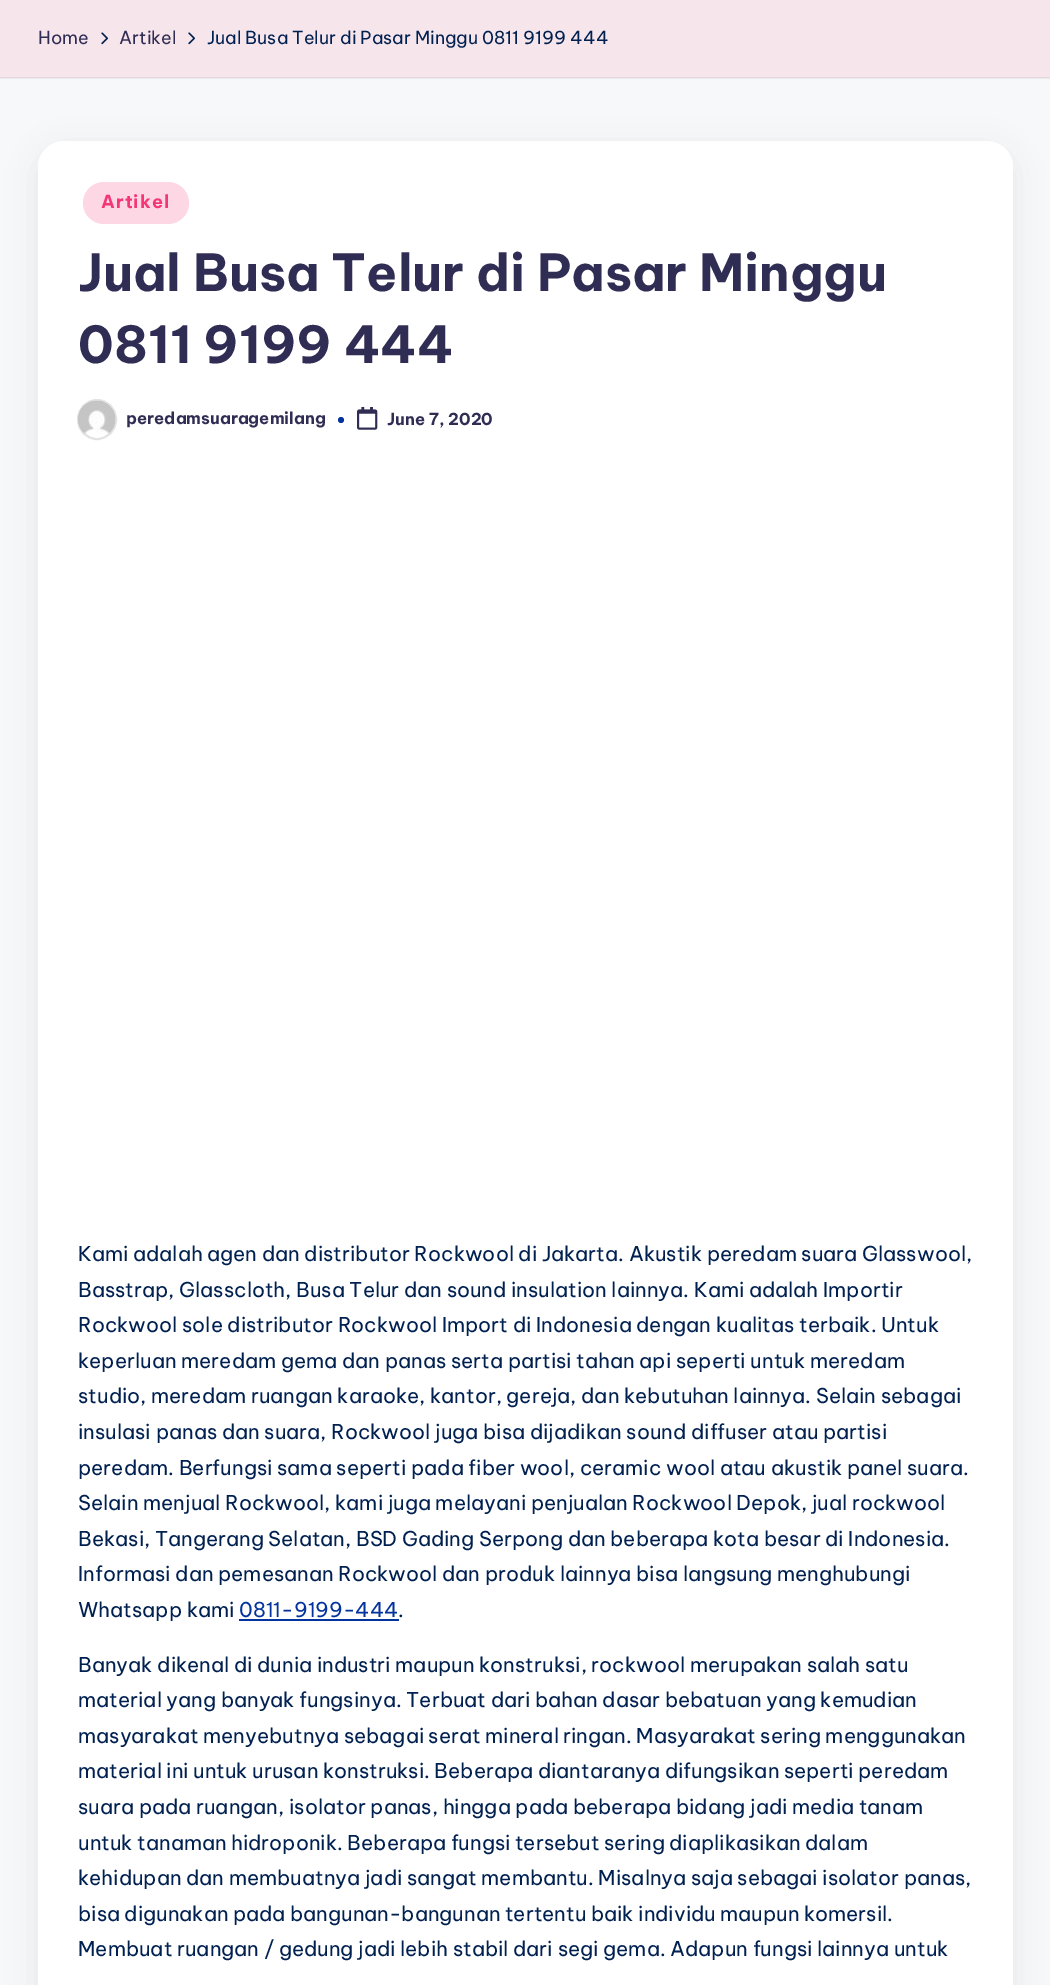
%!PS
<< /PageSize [1050 1985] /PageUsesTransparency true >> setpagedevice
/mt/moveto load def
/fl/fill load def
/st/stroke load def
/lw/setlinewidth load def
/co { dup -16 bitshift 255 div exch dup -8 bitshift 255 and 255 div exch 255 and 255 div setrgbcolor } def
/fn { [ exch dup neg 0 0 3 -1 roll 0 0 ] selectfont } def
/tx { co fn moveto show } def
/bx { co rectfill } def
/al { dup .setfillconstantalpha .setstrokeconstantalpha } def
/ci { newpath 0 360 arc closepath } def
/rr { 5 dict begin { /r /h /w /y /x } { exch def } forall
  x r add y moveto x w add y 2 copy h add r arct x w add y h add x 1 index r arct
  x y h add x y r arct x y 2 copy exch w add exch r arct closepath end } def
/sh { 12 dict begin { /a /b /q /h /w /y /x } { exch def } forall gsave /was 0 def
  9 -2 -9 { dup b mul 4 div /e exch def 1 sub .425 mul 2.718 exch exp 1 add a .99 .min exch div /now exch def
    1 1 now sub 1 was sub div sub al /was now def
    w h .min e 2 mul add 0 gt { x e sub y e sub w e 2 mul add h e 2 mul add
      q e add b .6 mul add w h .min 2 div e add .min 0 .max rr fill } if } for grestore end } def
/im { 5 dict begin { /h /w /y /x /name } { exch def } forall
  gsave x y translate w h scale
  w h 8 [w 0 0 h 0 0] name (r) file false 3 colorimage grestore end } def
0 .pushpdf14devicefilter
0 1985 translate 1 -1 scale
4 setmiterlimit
0 0 1050 1985 16#F7F8F9 bx
0 78 1050 1 16#E8E9EA bx
0 0 1050 77 16#F7E5EC bx
0 77 1050 1 16#E8D7DE bx
(media/1.raw) 101 32 7 13 im
(media/1.raw) 188 32 7 13 im
16#454360 co
38 149 975 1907 26 15 .1 sh
16#FFFFFF co
38 141 975 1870 26 rr fl
16#FDD7E4 co
83 182 106 42 21 rr fl
(media/2.raw) 78 400 38 34 im
0.4 al
16#B9B9B9 co
2 lw
78 400 38 39 19 rr st
1 al
16#03339C co
341 420 3 ci fl
(media/3.raw) 357 407 21 23 im
239 1619 160 2 16#03339C bx
(Home) 38 44 /BeVietnamPro-Regular 17.8 16#302D55 tx
(Artikel) 119 44 /BeVietnamPro-Regular 17.8 16#302D55 tx
(Jual Busa Telur di Pasar Minggu 0811 9199 444) 207 44 /BeVietnamPro-Regular 17.8 16#002050 tx
/BeVietnamPro-Bold 18 fn
16#F43676 co
101 208 mt 1 0 (Artikel) ashow
(Jual Busa Telur di Pasar Minggu) 78 291 /BeVietnamPro-Bold 50.9 16#302D55 tx
(0811 9199 444) 78 363 /BeVietnamPro-Bold 50.9 16#302D55 tx
(peredamsuaragemilang) 126 424 /BeVietnamPro-Bold 16.5 16#302D55 tx
(June 7, 2020) 387 425 /BeVietnamPro-Bold 16.5 16#302D55 tx
/BeVietnamPro-Regular 20.35 fn
16#002050 co
78 1261 mt -.1 0 32 (Kami adalah agen dan distributor Rockwool di Jakarta. Akustik peredam suara Glasswool,) widthshow
78 1297 mt -.1 0 32 (Basstrap, Glasscloth, Busa Telur dan sound insulation lainnya. Kami adalah Importir) widthshow
78 1332 mt -.1 0 32 (Rockwool sole distributor Rockwool Import di Indonesia dengan kualitas terbaik. Untuk) widthshow
(keperluan meredam gema dan panas serta partisi tahan api seperti untuk meredam) 78 1368 /BeVietnamPro-Regular 20.35 16#002050 tx
78 1403 mt -.1 0 32 (studio, meredam ruangan karaoke, kantor, gereja, dan kebutuhan lainnya. Selain sebagai) widthshow
(insulasi panas dan suara, Rockwool juga bisa dijadikan sound diffuser atau partisi) 78 1439 /BeVietnamPro-Regular 20.35 16#002050 tx
(peredam. Berfungsi sama seperti pada fiber wool, ceramic wool atau akustik panel suara.) 78 1475 /BeVietnamPro-Regular 20.35 16#002050 tx
78 1510 mt -.1 0 32 (Selain menjual Rockwool, kami juga melayani penjualan Rockwool Depok, jual rockwool) widthshow
78 1546 mt -.1 0 32 (Bekasi, Tangerang Selatan, BSD Gading Serpong dan beberapa kota besar di Indonesia.) widthshow
78 1581 mt -.1 0 32 (Informasi dan pemesanan Rockwool dan produk lainnya bisa langsung menghubungi) widthshow
(Whatsapp kami) 78 1617 /BeVietnamPro-Regular 20.35 16#002050 tx
(0811-9199-444) 239 1617 /BeVietnamPro-Regular 20.35 16#03339C tx
(.) 398 1617 /BeVietnamPro-Regular 20.35 16#002050 tx
78 1672 mt -.1 0 32 (Banyak dikenal di dunia industri maupun konstruksi, rockwool merupakan salah satu) widthshow
78 1707 mt -.1 0 32 (material yang banyak fungsinya. Terbuat dari bahan dasar bebatuan yang kemudian) widthshow
78 1743 mt -.25 0 32 (masyarakat menyebutnya sebagai serat mineral ringan. Masyarakat sering menggunakan) widthshow
78 1778 mt -.25 0 32 (material ini untuk urusan konstruksi. Beberapa diantaranya difungsikan seperti peredam) widthshow
(suara pada ruangan, isolator panas, hingga pada beberapa bidang jadi media tanam) 78 1814 /BeVietnamPro-Regular 20.35 16#002050 tx
78 1850 mt -.25 0 32 (untuk tanaman hidroponik. Beberapa fungsi tersebut sering diaplikasikan dalam) widthshow
78 1885 mt -.1 0 32 (kehidupan dan membuatnya jadi sangat membantu. Misalnya saja sebagai isolator panas,) widthshow
78 1921 mt -.25 0 32 (bisa digunakan pada bangunan-bangunan tertentu baik individu maupun komersil.) widthshow
(Membuat ruangan / gedung jadi lebih stabil dari segi gema. Adapun fungsi lainnya untuk) 78 1956 /BeVietnamPro-Regular 20.35 16#002050 tx
.poppdf14devicefilter showpage
